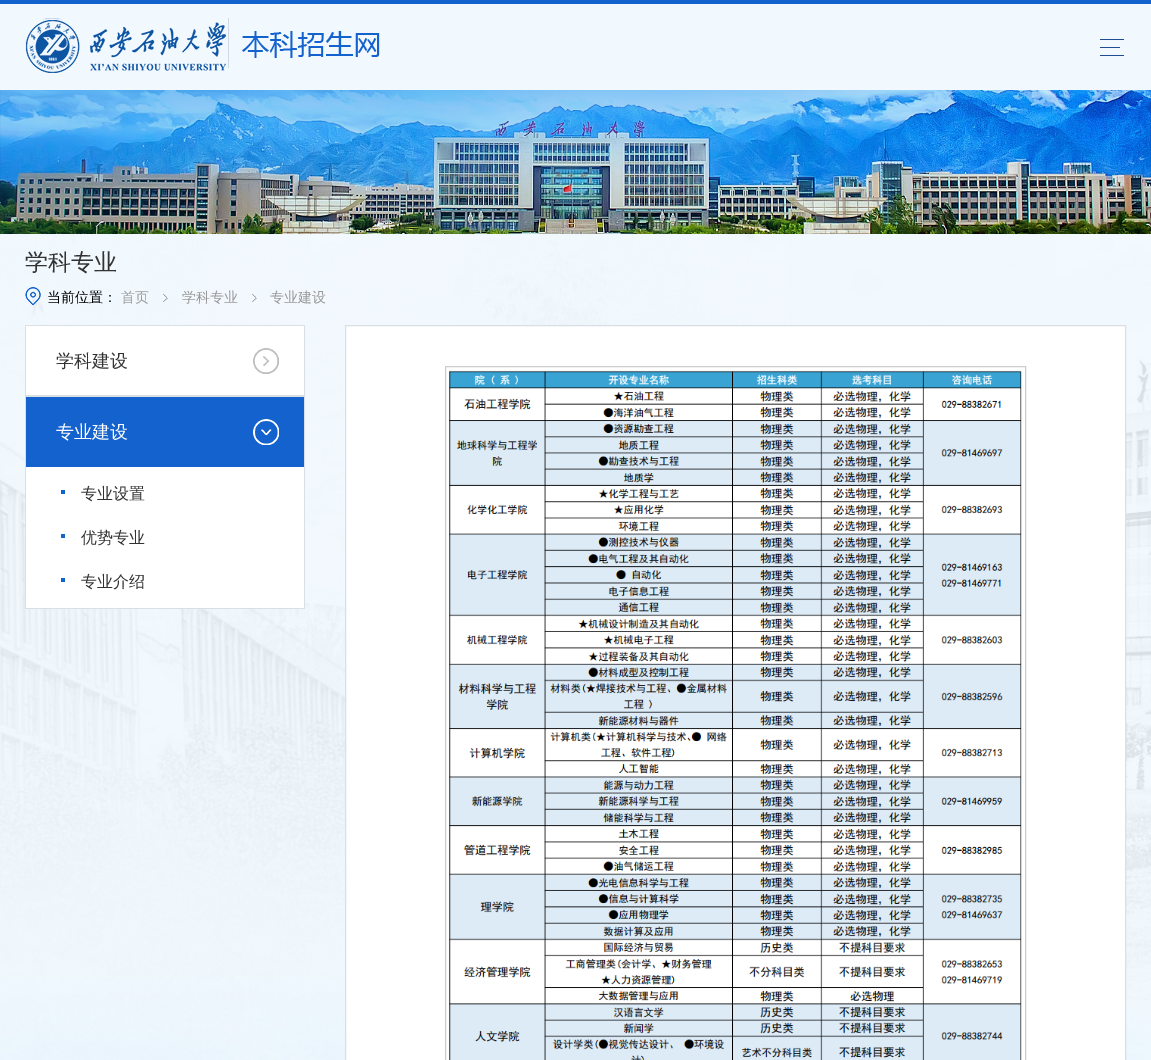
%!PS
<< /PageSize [1151 1060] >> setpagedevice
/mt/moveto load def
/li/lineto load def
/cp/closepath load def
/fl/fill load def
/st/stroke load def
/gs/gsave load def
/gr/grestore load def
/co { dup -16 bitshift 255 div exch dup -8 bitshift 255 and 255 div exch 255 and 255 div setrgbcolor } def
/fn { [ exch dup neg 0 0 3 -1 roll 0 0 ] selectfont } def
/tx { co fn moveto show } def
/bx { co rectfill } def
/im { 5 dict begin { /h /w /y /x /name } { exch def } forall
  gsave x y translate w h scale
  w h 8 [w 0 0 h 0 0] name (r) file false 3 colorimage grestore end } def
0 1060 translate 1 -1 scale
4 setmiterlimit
0 0 1151 1060 16#F1F8FE bx
0 0 1151 4 16#1462CD bx
(media/1.raw) 25 18 355 55 im
1100 47 20 1 16#204D90 bx
1100 39 24 1 16#204D90 bx
1100 55 24 1 16#204D90 bx
(media/2.raw) 0 90 1151 144 im
(media/3.raw) 0 234 1151 826 im
(media/4.raw) 25 287 16 18 im
(media/5.raw) 163 294 5 8 im
(media/6.raw) 252 294 5 8 im
26 326 278 69 16#FFFFFF bx
25 325 280 1 16#D8DFE5 bx
304 325 1 71 16#D8DFE5 bx
25 325 1 71 16#D8DFE5 bx
(media/7.raw) 253 348 26 26 im
26 395 278 1 16#D8DFE5 bx
26 467 278 141 16#FFFFFF bx
25 396 280 1 16#D8DFE5 bx
304 396 1 213 16#D8DFE5 bx
25 396 1 213 16#D8DFE5 bx
26 397 278 70 16#1462CD bx
(media/8.raw) 253 419 26 26 im
61 490 4 4 16#1462CD bx
61 534 4 4 16#1462CD bx
61 578 4 4 16#1462CD bx
26 608 278 1 16#D8DFE5 bx
16#FFFFFF co
345.5 325.5 mt 1125.5 325.5 li 1125.5 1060.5 li 345.5 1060.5 li cp gs fl gr
16#D8DFE5 co
st
16#CCCCCC co
445.5 366.5 580 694 rectstroke
(media/9.raw) 449 370 573 690 im
(学科专业) 25 270 /WenQuanYiZenHei-Medium 23 16#323232 tx
(当前位置：) 47 302 /WenQuanYiZenHei-Medium 14 16#000000 tx
(首页) 121 302 /WenQuanYiZenHei-Medium 14 16#999999 tx
(学科专业) 182 302 /WenQuanYiZenHei-Medium 14 16#999999 tx
(专业建设) 270 302 /WenQuanYiZenHei-Medium 14 16#999999 tx
(学科建设) 56 367 /WenQuanYiZenHei-Medium 18 16#323232 tx
(专业建设) 56 438 /WenQuanYiZenHei-Medium 18 16#FFFFFF tx
(专业设置) 81 499 /WenQuanYiZenHei-Medium 16 16#323232 tx
(优势专业) 81 543 /WenQuanYiZenHei-Medium 16 16#323232 tx
(专业介绍) 81 587 /WenQuanYiZenHei-Medium 16 16#323232 tx
showpage
